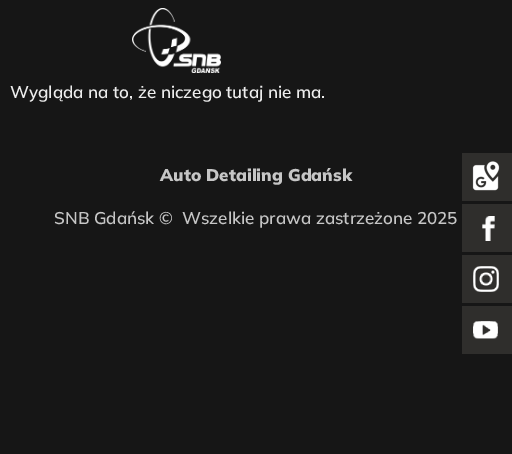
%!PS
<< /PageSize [512 454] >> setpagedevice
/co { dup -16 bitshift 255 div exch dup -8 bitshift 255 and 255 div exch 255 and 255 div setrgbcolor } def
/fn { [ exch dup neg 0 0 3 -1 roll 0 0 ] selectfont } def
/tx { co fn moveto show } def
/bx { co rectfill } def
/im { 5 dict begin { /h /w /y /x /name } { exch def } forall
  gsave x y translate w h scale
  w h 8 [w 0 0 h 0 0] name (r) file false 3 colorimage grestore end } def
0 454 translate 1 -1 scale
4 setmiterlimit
0 0 512 454 16#161616 bx
(media/1.raw) 132 8 89 65 im
462 153 50 48 16#2F2E2C bx
(media/2.raw) 472 161 28 30 im
462 204 50 48 16#2F2E2C bx
(media/3.raw) 482 216 13 25 im
462 255 50 48 16#2F2E2C bx
(media/4.raw) 473 266 26 26 im
462 306 50 48 16#2F2E2C bx
(media/5.raw) 473 321 25 18 im
(Wygląda na to, że niczego tutaj nie ma.) 10 98 /Mulish-SemiBold 17 16#EDEDED tx
(Auto Detailing Gdańsk) 160 181 /Mulish-Black 17 16#C6C6C6 tx
(SNB Gdańsk ©  Wszelkie prawa zastrzeżone 2025) 54 224 /Mulish-SemiBold 17 16#C6C6C6 tx
showpage
